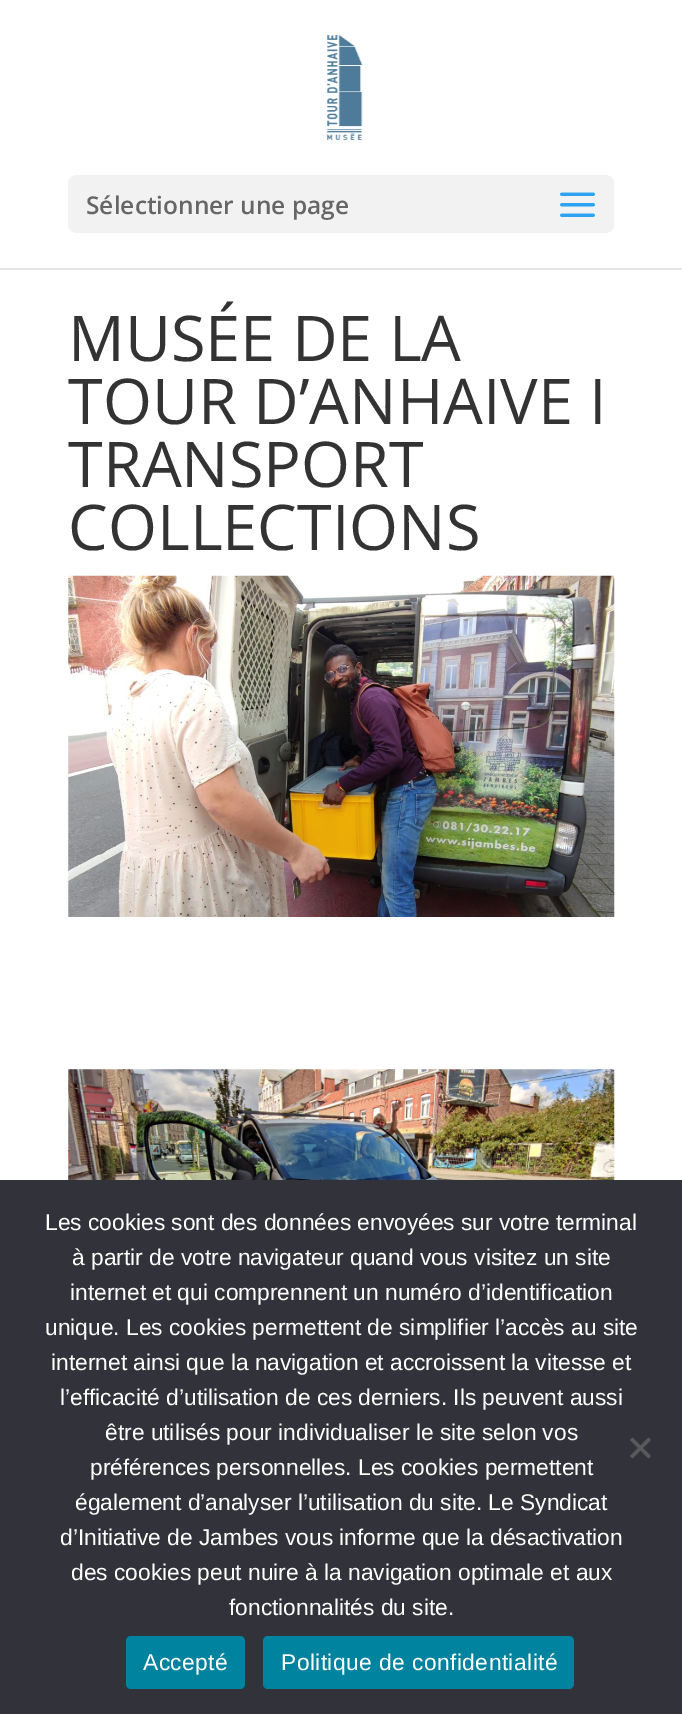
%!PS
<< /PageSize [682 1714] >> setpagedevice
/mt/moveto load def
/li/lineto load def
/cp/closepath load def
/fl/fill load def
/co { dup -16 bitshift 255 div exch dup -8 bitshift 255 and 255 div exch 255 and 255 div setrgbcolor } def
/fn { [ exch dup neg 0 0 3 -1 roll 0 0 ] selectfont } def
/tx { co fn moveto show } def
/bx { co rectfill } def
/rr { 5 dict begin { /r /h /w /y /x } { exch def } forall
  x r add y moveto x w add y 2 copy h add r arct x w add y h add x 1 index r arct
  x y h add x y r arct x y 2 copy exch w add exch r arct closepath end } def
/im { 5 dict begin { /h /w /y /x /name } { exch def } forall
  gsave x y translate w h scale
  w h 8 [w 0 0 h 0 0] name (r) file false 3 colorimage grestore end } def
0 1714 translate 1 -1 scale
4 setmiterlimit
0 0 682 1714 16#FFFFFF bx
16#E6E6E6 co
0 268 mt 0 270 li 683 270 li 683 2 li 682 2 li 682 268 li cp fl
(media/1.raw) 327 35 36 105 im
16#F2F2F2 co
68 175 546 58 9 rr fl
(media/2.raw) 560 192 35 25 im
(media/3.raw) 68 575 547 342 im
(media/4.raw) 68 1069 547 111 im
0 1180 682 534 16#32323A bx
16#59595D co
648.5 1437.5 mt 651 1440 li 632.5 1458.5 li 630 1456 li cp fl
630 1440 mt 632.5 1437.5 li 651 1456 li 648.5 1458.5 li cp fl
16#00839E co
126 1636 119 53 5 rr fl
263 1636 311 53 5 rr fl
(Sélectionner une page) 86 214 /OpenSans-SemiBold 24.5 16#666666 tx
(MUSÉE DE LA) 68 361 /OpenSans-Regular 63 16#333333 tx
(TOUR D’ANHAIVE I) 68 424 /OpenSans-Regular 63 16#333333 tx
(TRANSPORT) 68 487 /OpenSans-Regular 63 16#333333 tx
(COLLECTIONS) 68 550 /OpenSans-Regular 63 16#333333 tx
(Les cookies sont des données envoyées sur votre terminal) 45 1230 /LiberationSans-Regular 22.75 16#FFFFFF tx
(à partir de votre navigateur quand vous visitez un site) 72 1265 /LiberationSans-Regular 22.75 16#FFFFFF tx
(internet et qui comprennent un numéro d’identification) 70 1300 /LiberationSans-Regular 22.75 16#FFFFFF tx
(unique. Les cookies permettent de simplifier l’accès au site) 45 1335 /LiberationSans-Regular 22.75 16#FFFFFF tx
(internet ainsi que la navigation et accroissent la vitesse et) 51 1370 /LiberationSans-Regular 22.75 16#FFFFFF tx
(l’efficacité d’utilisation de ces derniers. Ils peuvent aussi) 60 1405 /LiberationSans-Regular 22.75 16#FFFFFF tx
(être utilisés pour individualiser le site selon vos) 105 1440 /LiberationSans-Regular 22.75 16#FFFFFF tx
(préférences personnelles. Les cookies permettent) 90 1475 /LiberationSans-Regular 22.75 16#FFFFFF tx
(également d’analyser l’utilisation du site. Le Syndicat) 75 1510 /LiberationSans-Regular 22.75 16#FFFFFF tx
(d’Initiative de Jambes vous informe que la désactivation) 60 1545 /LiberationSans-Regular 22.75 16#FFFFFF tx
(des cookies peut nuire à la navigation optimale et aux) 71 1580 /LiberationSans-Regular 22.75 16#FFFFFF tx
(fonctionnalités du site.) 229 1615 /LiberationSans-Regular 22.75 16#FFFFFF tx
143 1670 mt .45 0 (Accepté) ashow
281 1670 mt .45 0 (Politique de confidentialité) ashow
showpage
